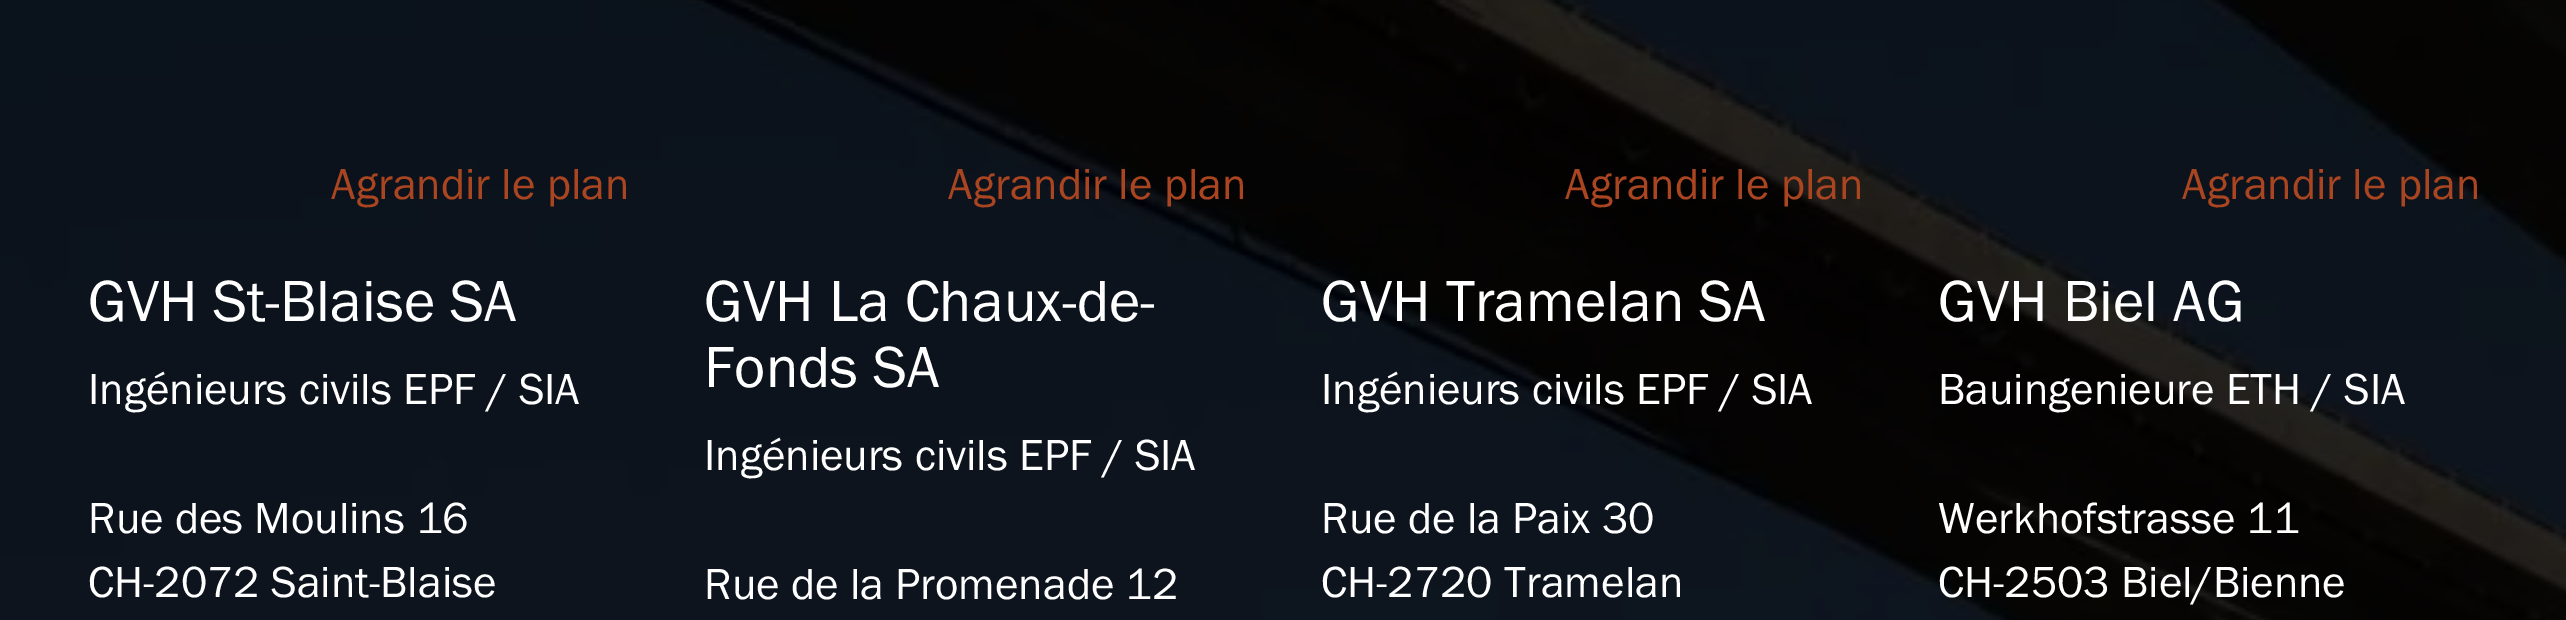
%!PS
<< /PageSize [2566 620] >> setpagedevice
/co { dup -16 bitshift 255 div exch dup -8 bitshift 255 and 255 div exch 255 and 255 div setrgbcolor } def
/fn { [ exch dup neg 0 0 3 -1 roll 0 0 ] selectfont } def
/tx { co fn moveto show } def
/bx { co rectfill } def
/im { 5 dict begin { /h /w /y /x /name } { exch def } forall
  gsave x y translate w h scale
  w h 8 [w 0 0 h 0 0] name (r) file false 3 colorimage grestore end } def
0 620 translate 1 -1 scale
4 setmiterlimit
0 0 2566 620 16#FFFFFF bx
(media/1.raw) 0 0 2566 620 im
(Agrandir le plan) 331 199 /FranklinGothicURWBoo-Regular 45 16#A94520 tx
(GVH St-Blaise SA) 88 321 /FranklinGothicURWBoo-Regular 60 16#FFFFFF tx
(Ingénieurs civils EPF / SIA) 88 404 /FranklinGothicURWBoo-Regular 45 16#FFFFFF tx
(Rue des Moulins 16) 88 533 /FranklinGothicURWBoo-Regular 45 16#FFFFFF tx
(CH-2072 Saint-Blaise) 88 597 /FranklinGothicURWBoo-Regular 45 16#FFFFFF tx
(Agrandir le plan) 948 199 /FranklinGothicURWBoo-Regular 45 16#A94520 tx
(GVH La Chaux-de-) 704 321 /FranklinGothicURWBoo-Regular 60 16#FFFFFF tx
(Fonds SA) 704 387 /FranklinGothicURWBoo-Regular 60 16#FFFFFF tx
(Ingénieurs civils EPF / SIA) 704 470 /FranklinGothicURWBoo-Regular 45 16#FFFFFF tx
(Rue de la Promenade 12) 704 599 /FranklinGothicURWBoo-Regular 45 16#FFFFFF tx
(Agrandir le plan) 1565 199 /FranklinGothicURWBoo-Regular 45 16#A94520 tx
(GVH Tramelan SA) 1321 321 /FranklinGothicURWBoo-Regular 60 16#FFFFFF tx
(Ingénieurs civils EPF / SIA) 1321 404 /FranklinGothicURWBoo-Regular 45 16#FFFFFF tx
(Rue de la Paix 30) 1321 533 /FranklinGothicURWBoo-Regular 45 16#FFFFFF tx
(CH-2720 Tramelan) 1321 597 /FranklinGothicURWBoo-Regular 45 16#FFFFFF tx
(Agrandir le plan) 2182 199 /FranklinGothicURWBoo-Regular 45 16#A94520 tx
(GVH Biel AG) 1938 321 /FranklinGothicURWBoo-Regular 60 16#FFFFFF tx
(Bauingenieure ETH / SIA) 1938 404 /FranklinGothicURWBoo-Regular 45 16#FFFFFF tx
(Werkhofstrasse 11) 1938 533 /FranklinGothicURWBoo-Regular 45 16#FFFFFF tx
(CH-2503 Biel/Bienne) 1938 597 /FranklinGothicURWBoo-Regular 45 16#FFFFFF tx
showpage
